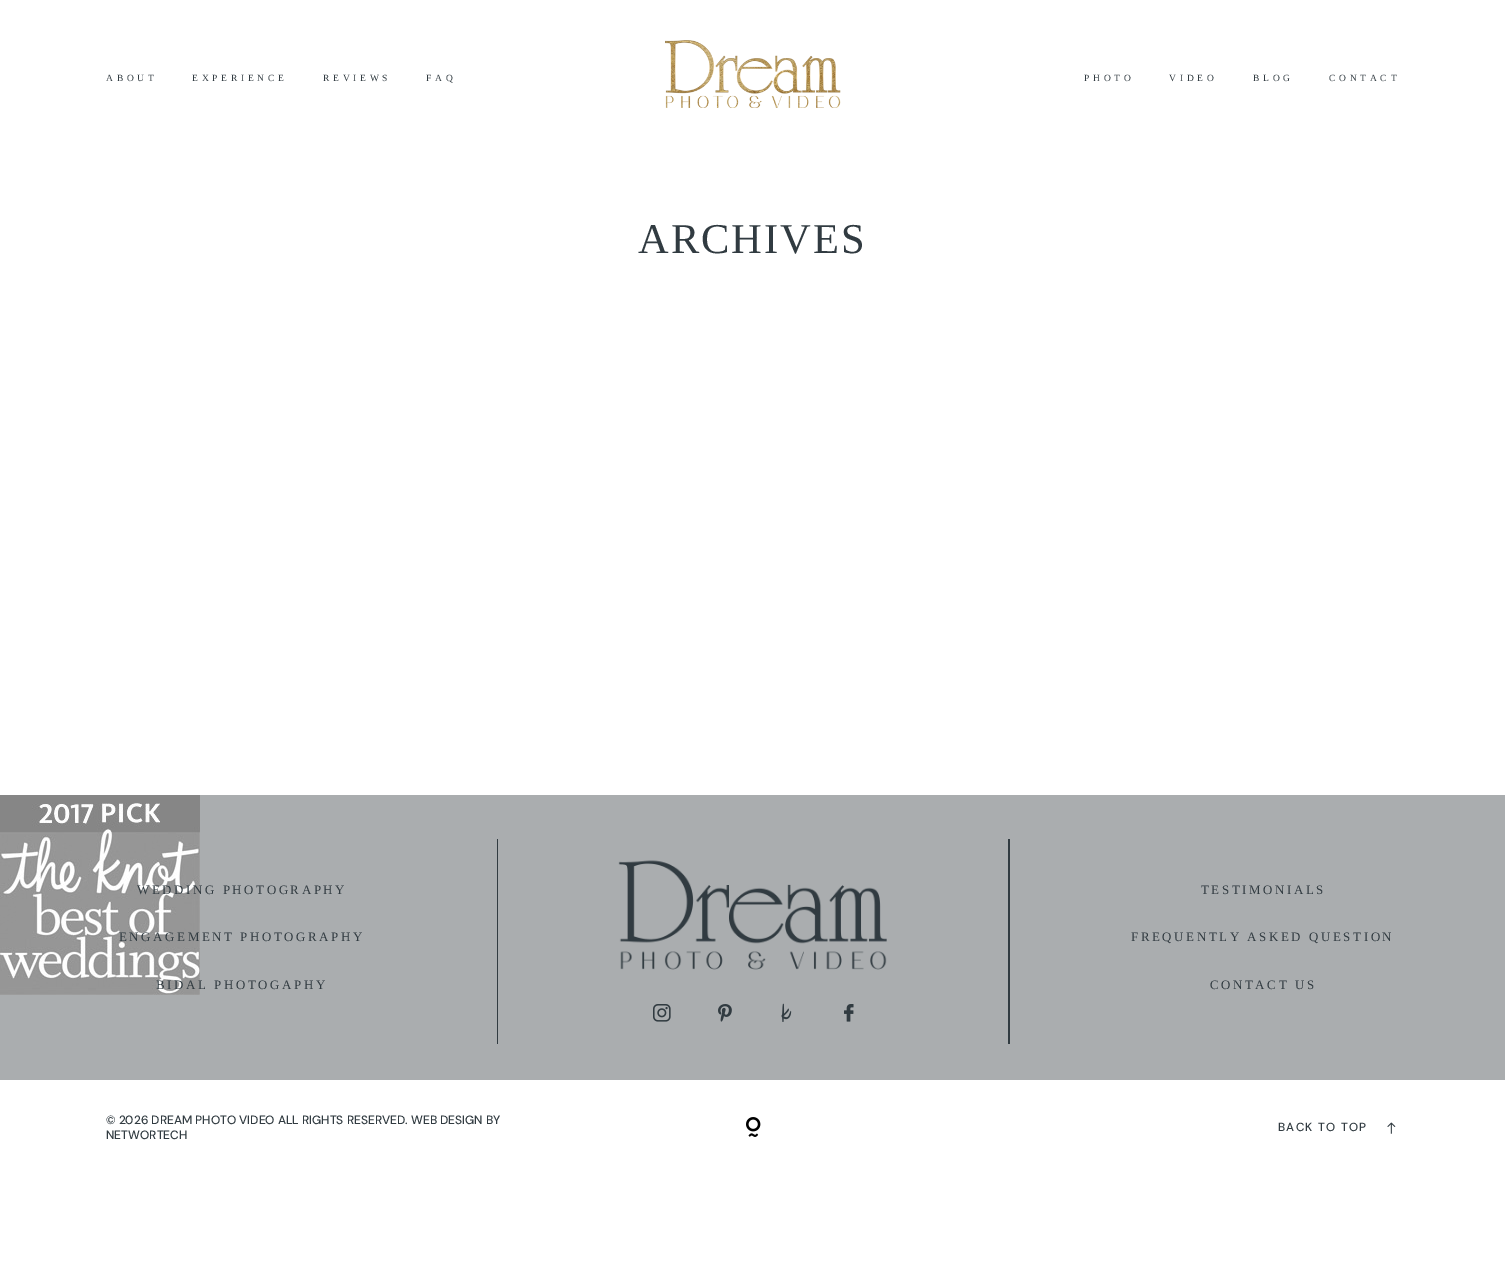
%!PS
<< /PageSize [1505 1279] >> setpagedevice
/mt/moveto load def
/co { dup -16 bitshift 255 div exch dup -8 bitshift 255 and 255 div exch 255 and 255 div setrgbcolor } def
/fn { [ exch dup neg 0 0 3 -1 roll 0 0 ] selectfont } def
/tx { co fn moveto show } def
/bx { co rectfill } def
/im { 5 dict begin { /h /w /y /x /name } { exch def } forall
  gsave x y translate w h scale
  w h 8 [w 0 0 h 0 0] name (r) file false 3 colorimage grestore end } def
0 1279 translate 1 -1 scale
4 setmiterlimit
0 0 1505 1279 16#FFFFFF bx
(media/1.raw) 665 40 176 68 im
0 795 1505 285 16#AAADAF bx
(media/2.raw) 0 795 200 200 im
497 839 1 205 16#313B41 bx
(media/3.raw) 618 860 269 110 im
1008 839 2 205 16#313B41 bx
(media/4.raw) 653 1004 18 18 im
(media/5.raw) 718 1004 14 18 im
(media/6.raw) 781 1003 11 19 im
(media/7.raw) 844 1004 10 18 im
(media/8.raw) 746 1117 15 20 im
(media/9.raw) 1387 1122 9 12 im
/LiberationSerif-Regular 9.5 fn
106 81 mt 3.75 0 (ABOUT) ashow
192 81 mt 3.75 0 (EXPERIENCE) ashow
323 81 mt 3.75 0 (REVIEWS) ashow
426 81 mt 3.75 0 (FAQ) ashow
1084 81 mt 3.75 0 (PHOTO) ashow
1169 81 mt 3.75 0 (VIDEO) ashow
1253 81 mt 3.75 0 (BLOG) ashow
1329 81 mt 3.75 0 (CONTACT) ashow
/LiberationSerif-Regular 42.5 fn
638 253 mt 2 0 (ARCHIVES) ashow
/LiberationSerif-Regular 12.9 fn
137 894 mt 2.6 0 (WEDDING PHOTOGRAPHY) ashow
1201 894 mt 2.6 0 (TESTIMONIALS) ashow
119 941 mt 2.6 0 (ENGAGEMENT PHOTOGRAPHY) ashow
1131 941 mt 2.6 0 (FREQUENTLY ASKED QUESTION) ashow
156 989 mt 2.6 0 (BIDAL PHOTOGAPHY) ashow
1210 989 mt 2.6 0 (CONTACT US) ashow
(© 2026 DREAM PHOTO VIDEO ALL RIGHTS RESERVED. WEB DESIGN BY) 106 1124 /DMSans-Medium 12 16#313B41 tx
(NETWORTECH) 106 1139 /DMSans-Medium 12 16#313B41 tx
/DMSans-Medium 11.75 fn
1278 1131 mt 1.25 0 (BACK TO TOP) ashow
showpage
